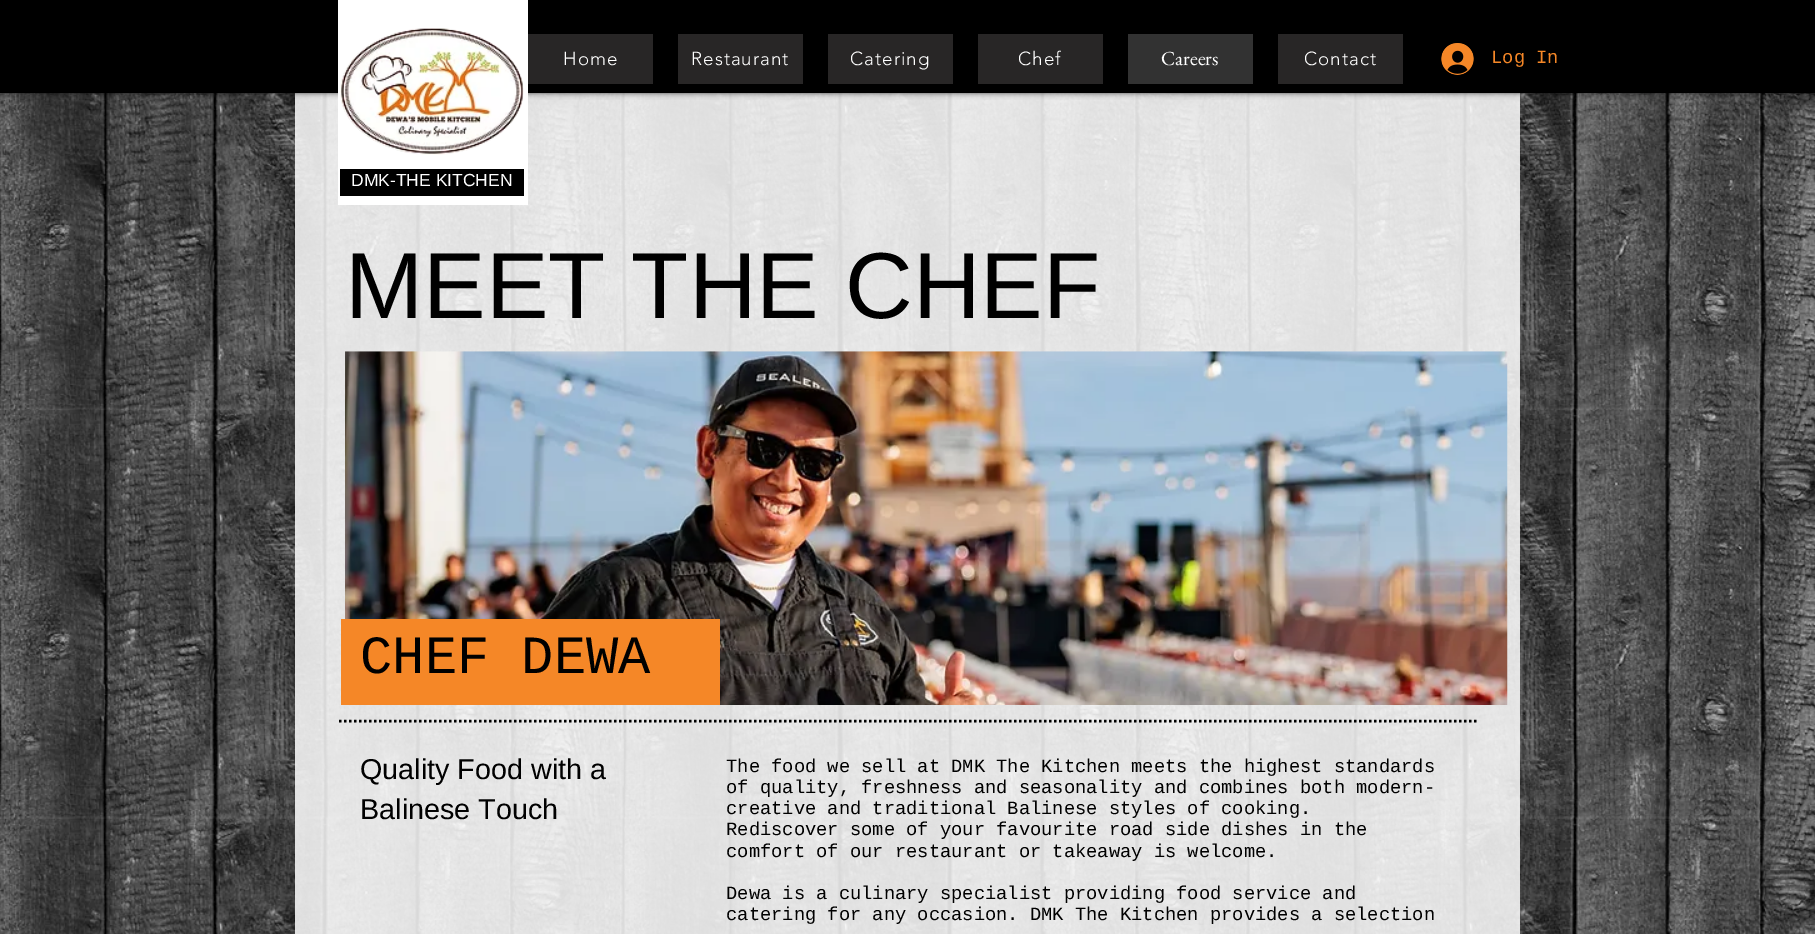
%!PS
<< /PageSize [1815 934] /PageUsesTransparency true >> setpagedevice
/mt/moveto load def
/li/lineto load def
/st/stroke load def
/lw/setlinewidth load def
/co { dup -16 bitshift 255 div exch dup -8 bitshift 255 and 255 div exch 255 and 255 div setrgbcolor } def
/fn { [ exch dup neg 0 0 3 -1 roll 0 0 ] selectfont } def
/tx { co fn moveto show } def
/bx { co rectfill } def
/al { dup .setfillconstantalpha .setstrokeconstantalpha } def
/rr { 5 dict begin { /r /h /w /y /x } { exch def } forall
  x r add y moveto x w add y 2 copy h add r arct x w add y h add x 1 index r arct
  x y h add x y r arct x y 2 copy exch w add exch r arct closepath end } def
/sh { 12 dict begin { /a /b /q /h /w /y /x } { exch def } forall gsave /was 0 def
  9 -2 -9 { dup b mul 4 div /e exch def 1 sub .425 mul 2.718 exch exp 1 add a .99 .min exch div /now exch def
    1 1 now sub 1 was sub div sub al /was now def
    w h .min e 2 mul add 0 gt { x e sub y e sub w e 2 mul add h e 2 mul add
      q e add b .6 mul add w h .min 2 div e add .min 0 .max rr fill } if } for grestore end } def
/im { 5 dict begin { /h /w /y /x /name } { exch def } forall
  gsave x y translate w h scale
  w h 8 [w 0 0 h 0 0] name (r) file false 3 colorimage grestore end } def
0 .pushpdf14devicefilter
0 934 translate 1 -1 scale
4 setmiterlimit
0 0 1815 934 16#FFFFFF bx
(media/4.raw) 0 93 1815 841 im
0.85 al
295 93 1225 841 16#FFFFFF bx
1 al
16#000000 co
0 0 1815 93 0 3 .7 sh
0 0 1815 93 16#000000 bx
528 34 125 50 16#282626 bx
678 34 125 50 16#282626 bx
828 34 125 50 16#282626 bx
978 34 125 50 16#282626 bx
1128 34 125 50 16#323232 bx
1278 34 125 50 16#282626 bx
(media/1.raw) 1441 43 33 32 im
338 0 190 205 16#FFFFFF bx
(media/2.raw) 340 28 184 127 im
340 169 184 27 16#000000 bx
(media/3.raw) 345 351 1163 354 im
341 619 379 86 16#F58727 bx
16#000000 co
2.5 lw
[2.5 2.5] 0 setdash
339 721 mt 1477.5 721 li st
/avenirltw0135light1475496-Light 18.75 fn
16#FFFFFF co
563 65 mt 1 0 (Home) ashow
691 65 mt 1 0 (Restaurant) ashow
850 65 mt 1 0 (Catering) ashow
1018 65 mt 1 0 (Chef) ashow
(Careers) 1161 65 /EBGaramond-Regular 20 16#FFFFFF tx
/avenirltw0135light1475496-Light 18.75 fn
1304 65 mt 1 0 (Contact) ashow
(Log In) 1491 63 /LiberationMono-Regular 18.75 16#F58727 tx
(DMK-THE KITCHEN) 351 186 /LiberationSans-Regular 17.5 16#FFFFFF tx
(MEET THE CHEF) 345 318 /LiberationSans-Regular 93.75 16#000000 tx
(CHEF DEWA) 360 673 /LiberationMono-Regular 53.75 16#000000 tx
(Quality Food with a) 360 779 /LiberationSans-Regular 28.75 16#000000 tx
(Balinese Touch) 360 819 /LiberationSans-Regular 28.75 16#000000 tx
(The food we sell at DMK The Kitchen meets the highest standards) 726 772 /LiberationMono-Regular 18.75 16#000000 tx
(of quality, freshness and seasonality and combines both modern-) 726 793 /LiberationMono-Regular 18.75 16#000000 tx
(creative and traditional Balinese styles of cooking.) 726 814 /LiberationMono-Regular 18.75 16#000000 tx
(Rediscover some of your favourite road side dishes in the) 726 835 /LiberationMono-Regular 18.75 16#000000 tx
(comfort of our restaurant or takeaway is welcome.) 726 857 /LiberationMono-Regular 18.75 16#000000 tx
(Dewa is a culinary specialist providing food service and) 726 899 /LiberationMono-Regular 18.75 16#000000 tx
(catering for any occasion. DMK The Kitchen provides a selection) 726 920 /LiberationMono-Regular 18.75 16#000000 tx
.poppdf14devicefilter showpage
